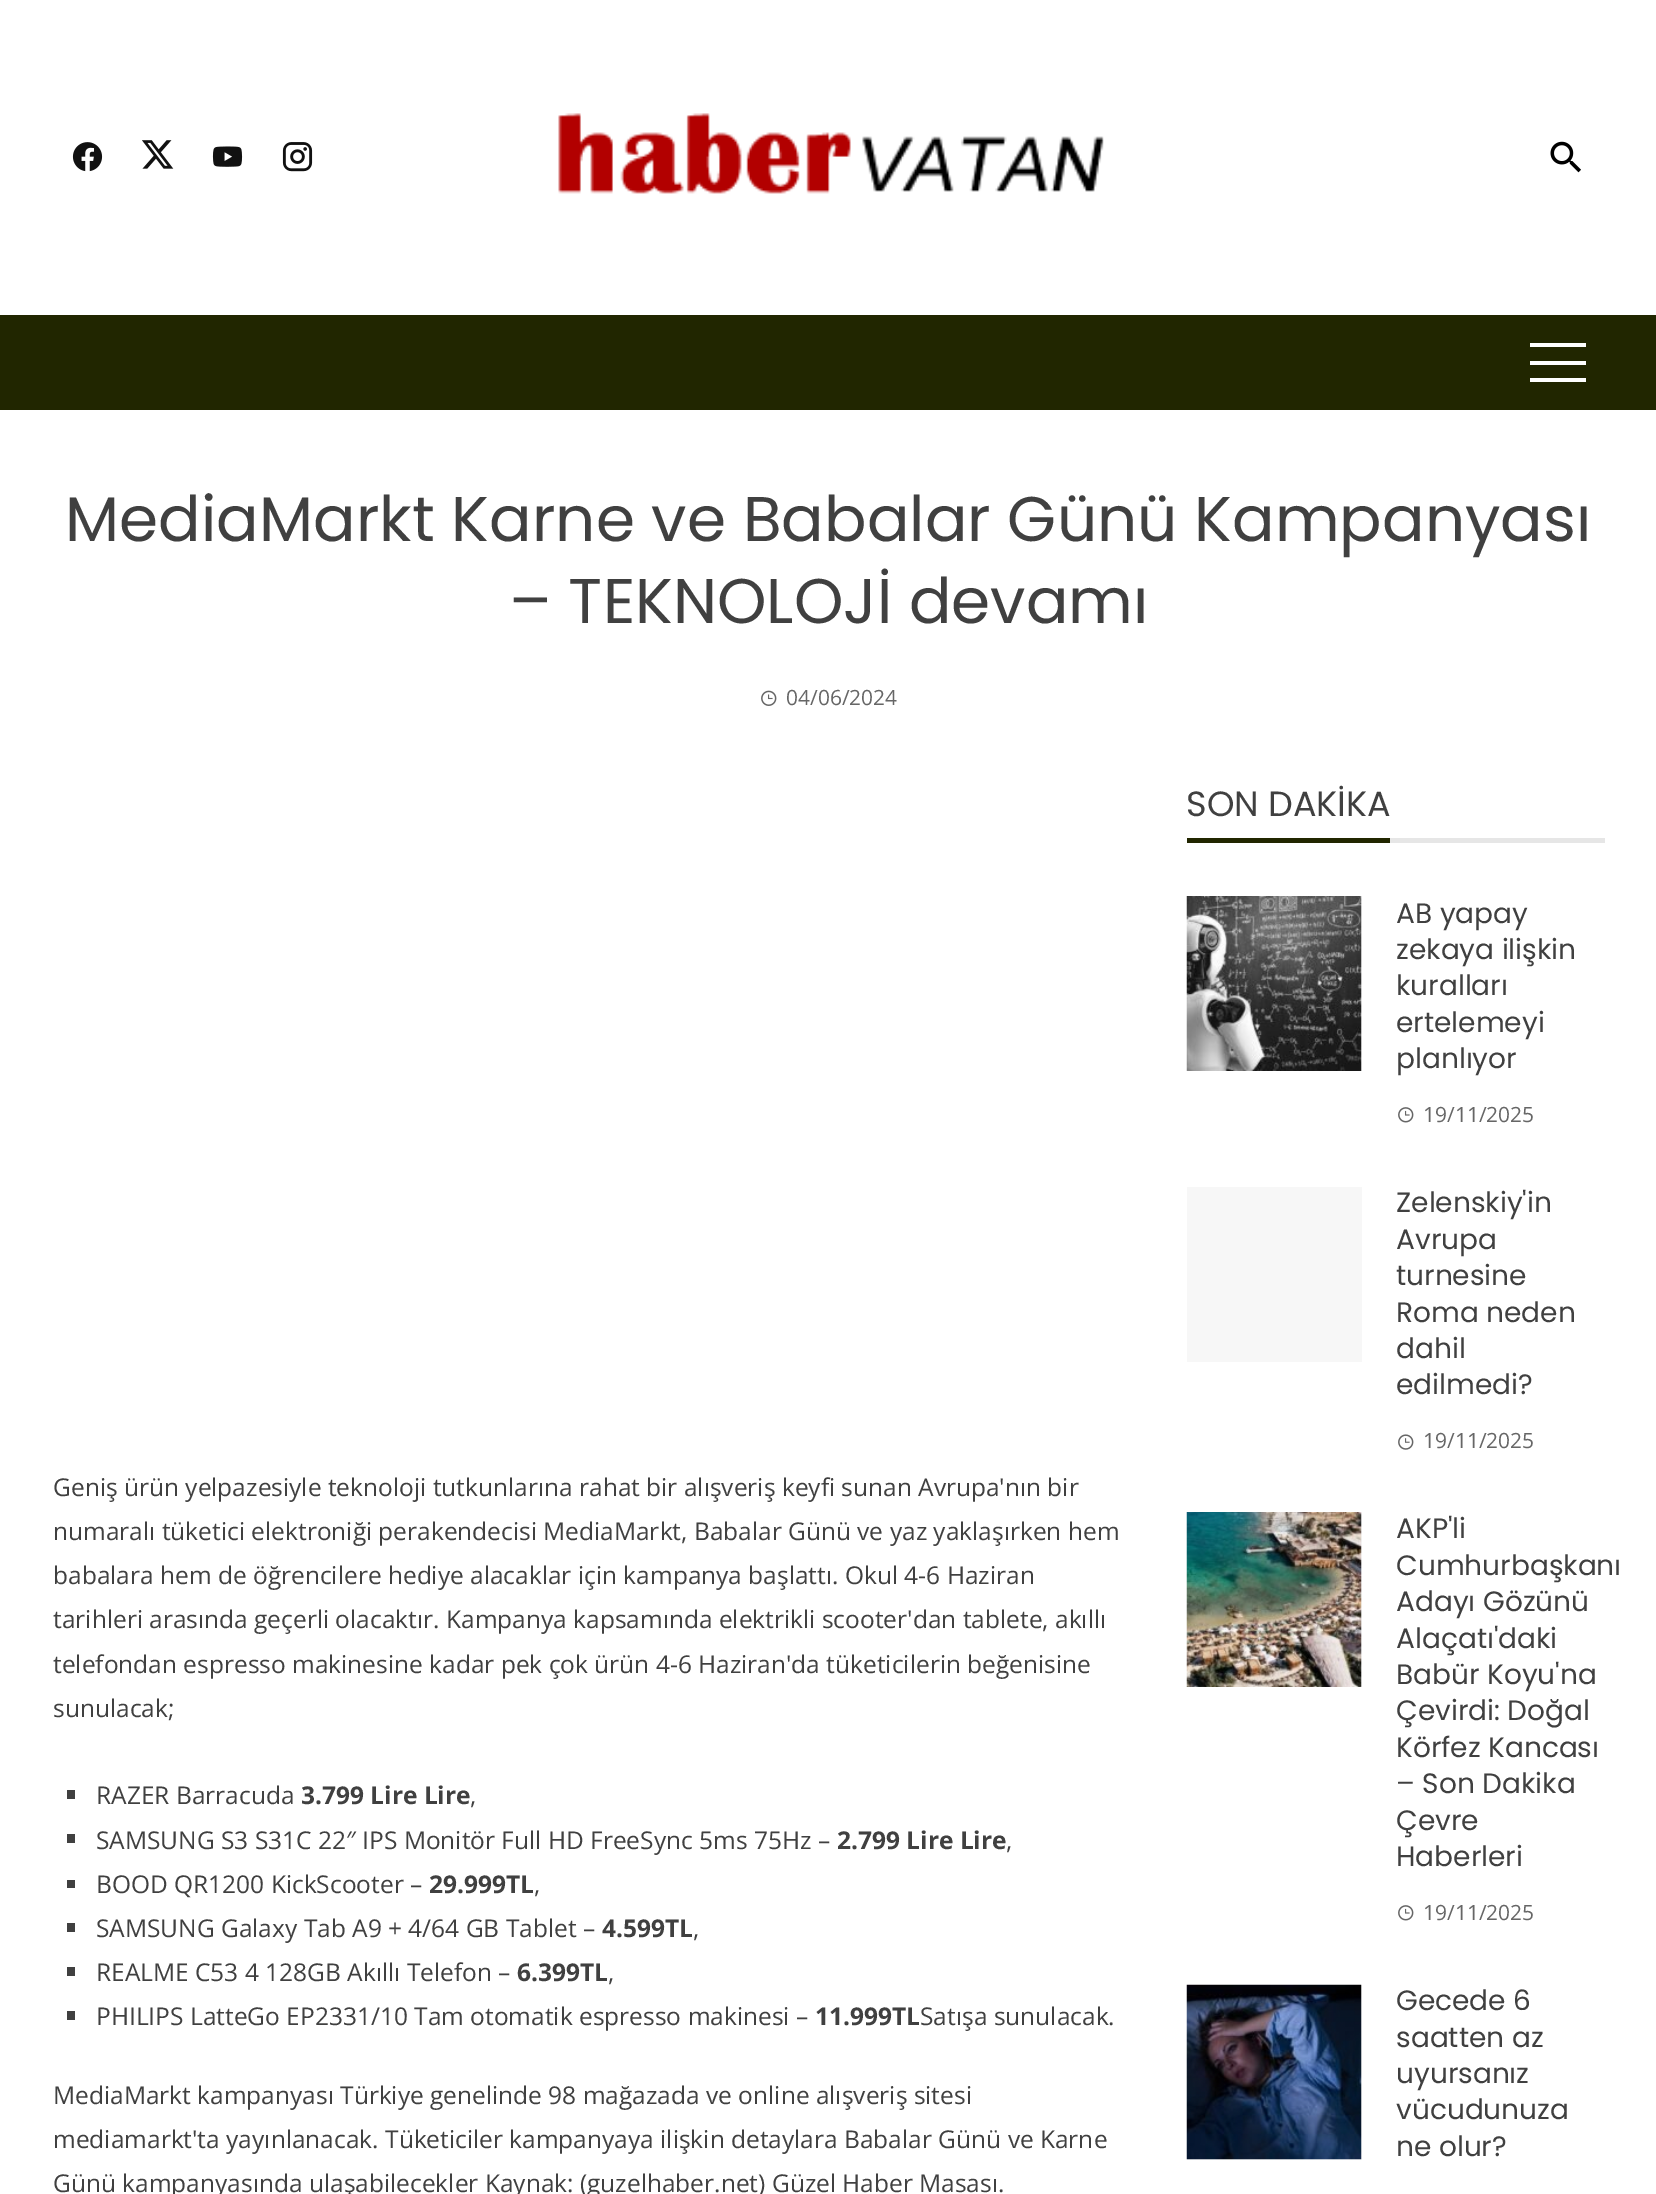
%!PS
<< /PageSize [1656 2194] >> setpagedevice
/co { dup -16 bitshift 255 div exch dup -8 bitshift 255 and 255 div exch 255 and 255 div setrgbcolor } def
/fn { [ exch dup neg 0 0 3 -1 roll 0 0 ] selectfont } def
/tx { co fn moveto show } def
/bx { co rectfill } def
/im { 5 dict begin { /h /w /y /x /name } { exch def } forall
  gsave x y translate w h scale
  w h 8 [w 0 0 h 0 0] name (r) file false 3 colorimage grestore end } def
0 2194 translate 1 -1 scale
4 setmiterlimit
0 0 1656 2194 16#FFFFFF bx
(media/1.raw) 72 142 31 30 im
(media/2.raw) 142 140 32 29 im
(media/3.raw) 212 146 31 21 im
(media/4.raw) 282 142 31 30 im
(media/5.raw) 558 113 546 81 im
(media/6.raw) 1550 141 31 32 im
0 315 1656 95 16#212600 bx
1530 343 56 4 16#FFFFFF bx
1530 378 56 4 16#FFFFFF bx
1530 361 56 4 16#FFFFFF bx
(media/7.raw) 761 690 16 16 im
67 1790 8 9 16#404040 bx
67 1834 8 9 16#404040 bx
67 1880 8 8 16#404040 bx
67 1923 8 9 16#404040 bx
67 1967 8 9 16#404040 bx
67 2011 8 9 16#404040 bx
1390 838 215 5 16#E6E6E6 bx
1187 838 203 5 16#212600 bx
1361 896 1 175 16#F7F7F7 bx
(media/8.raw) 1186 896 176 175 im
(media/9.raw) 1398 1107 16 16 im
1187 1187 175 175 16#F7F7F7 bx
(media/10.raw) 1398 1434 16 16 im
1361 1512 1 175 16#F7F7F7 bx
(media/11.raw) 1186 1512 176 175 im
(media/9.raw) 1398 1905 16 16 im
1187 1985 175 175 16#F7F7F7 bx
(media/12.raw) 1186 1984 176 176 im
(MediaMarkt Karne ve Babalar Günü Kampanyası) 65 541 /Poppins-Regular 63 16#404040 tx
(– TEKNOLOJİ devamı) 509 623 /Poppins-Regular 63 16#404040 tx
(04/06/2024) 786 705 /OpenSans-Regular 21 16#666666 tx
(Geniş ürün yelpazesiyle teknoloji tutkunlarına rahat bir alışveriş keyfi sunan Avrupa'nın bir) 53 1496 /OpenSans-Regular 24.5 16#404040 tx
(numaralı tüketici elektroniği perakendecisi MediaMarkt, Babalar Günü ve yaz yaklaşırken hem) 53 1540 /OpenSans-Regular 24.5 16#404040 tx
(babalara hem de öğrencilere hediye alacaklar için kampanya başlattı. Okul 4-6 Haziran) 53 1584 /OpenSans-Regular 24.5 16#404040 tx
(tarihleri arasında geçerli olacaktır. Kampanya kapsamında elektrikli scooter'dan tablete, akıllı) 53 1628 /OpenSans-Regular 24.5 16#404040 tx
(telefondan espresso makinesine kadar pek çok ürün 4-6 Haziran'da tüketicilerin beğenisine) 53 1673 /OpenSans-Regular 24.5 16#404040 tx
(sunulacak;) 53 1717 /OpenSans-Regular 24.5 16#404040 tx
(RAZER Barracuda) 96 1804 /OpenSans-Regular 24.5 16#404040 tx
(3.799 Lire Lire) 301 1804 /OpenSans-Bold 24.5 16#404040 tx
(,) 470 1804 /OpenSans-Regular 24.5 16#404040 tx
(SAMSUNG S3 S31C 22″ IPS Monitör Full HD FreeSync 5ms 75Hz –) 96 1849 /OpenSans-Regular 24.5 16#404040 tx
(2.799 Lire Lire) 837 1849 /OpenSans-Bold 24.5 16#404040 tx
(,) 1006 1849 /OpenSans-Regular 24.5 16#404040 tx
(BOOD QR1200 KickScooter –) 96 1893 /OpenSans-Regular 24.5 16#404040 tx
(29.999TL) 429 1893 /OpenSans-Bold 24.5 16#404040 tx
(,) 534 1893 /OpenSans-Regular 24.5 16#404040 tx
(SAMSUNG Galaxy Tab A9 + 4/64 GB Tablet –) 96 1937 /OpenSans-Regular 24.5 16#404040 tx
(4.599TL) 602 1937 /OpenSans-Bold 24.5 16#404040 tx
(,) 693 1937 /OpenSans-Regular 24.5 16#404040 tx
(REALME C53 4 128GB Akıllı Telefon –) 96 1981 /OpenSans-Regular 24.5 16#404040 tx
(6.399TL) 517 1981 /OpenSans-Bold 24.5 16#404040 tx
(,) 608 1981 /OpenSans-Regular 24.5 16#404040 tx
(PHILIPS LatteGo EP2331/10 Tam otomatik espresso makinesi –) 96 2025 /OpenSans-Regular 24.5 16#404040 tx
(11.999TL) 815 2025 /OpenSans-Bold 24.5 16#404040 tx
(Satışa sunulacak.) 920 2025 /OpenSans-Regular 24.5 16#404040 tx
(MediaMarkt kampanyası Türkiye genelinde 98 mağazada ve online alışveriş sitesi) 53 2104 /OpenSans-Regular 24.5 16#404040 tx
(mediamarkt'ta yayınlanacak. Tüketiciler kampanyaya ilişkin detaylara Babalar Günü ve Karne) 53 2148 /OpenSans-Regular 24.5 16#404040 tx
(Günü kampanyasında ulaşabilecekler Kaynak: \(guzelhaber.net\) Güzel Haber Masası.) 53 2192 /OpenSans-Regular 24.5 16#404040 tx
(SON DAKİKA) 1186 816 /Poppins-Regular 35 16#404040 tx
(AB yapay) 1396 923 /Poppins-Regular 28 16#404040 tx
(zekaya ilişkin) 1396 959 /Poppins-Regular 28 16#404040 tx
(kuralları) 1396 995 /Poppins-Regular 28 16#404040 tx
(ertelemeyi) 1396 1032 /Poppins-Regular 28 16#404040 tx
(planlıyor) 1396 1068 /Poppins-Regular 28 16#404040 tx
(19/11/2025) 1423 1122 /OpenSans-Regular 21 16#666666 tx
(Zelenskiy'in) 1396 1212 /Poppins-Regular 28 16#404040 tx
(Avrupa) 1396 1249 /Poppins-Regular 28 16#404040 tx
(turnesine) 1396 1285 /Poppins-Regular 28 16#404040 tx
(Roma neden) 1396 1322 /Poppins-Regular 28 16#404040 tx
(dahil) 1396 1358 /Poppins-Regular 28 16#404040 tx
(edilmedi?) 1396 1394 /Poppins-Regular 28 16#404040 tx
(19/11/2025) 1423 1448 /OpenSans-Regular 21 16#666666 tx
(AKP'li) 1396 1538 /Poppins-Regular 28 16#404040 tx
(Cumhurbaşkanı) 1396 1575 /Poppins-Regular 28 16#404040 tx
(Adayı Gözünü) 1396 1611 /Poppins-Regular 28 16#404040 tx
(Alaçatı'daki) 1396 1648 /Poppins-Regular 28 16#404040 tx
(Babür Koyu'na) 1396 1684 /Poppins-Regular 28 16#404040 tx
(Çevirdi: Doğal) 1396 1720 /Poppins-Regular 28 16#404040 tx
(Körfez Kancası) 1396 1757 /Poppins-Regular 28 16#404040 tx
(– Son Dakika) 1396 1793 /Poppins-Regular 28 16#404040 tx
(Çevre) 1396 1830 /Poppins-Regular 28 16#404040 tx
(Haberleri) 1396 1866 /Poppins-Regular 28 16#404040 tx
(19/11/2025) 1423 1920 /OpenSans-Regular 21 16#666666 tx
(Gecede 6) 1396 2010 /Poppins-Regular 28 16#404040 tx
(saatten az) 1396 2047 /Poppins-Regular 28 16#404040 tx
(uyursanız) 1396 2083 /Poppins-Regular 28 16#404040 tx
(vücudunuza) 1396 2119 /Poppins-Regular 28 16#404040 tx
(ne olur?) 1396 2156 /Poppins-Regular 28 16#404040 tx
showpage
